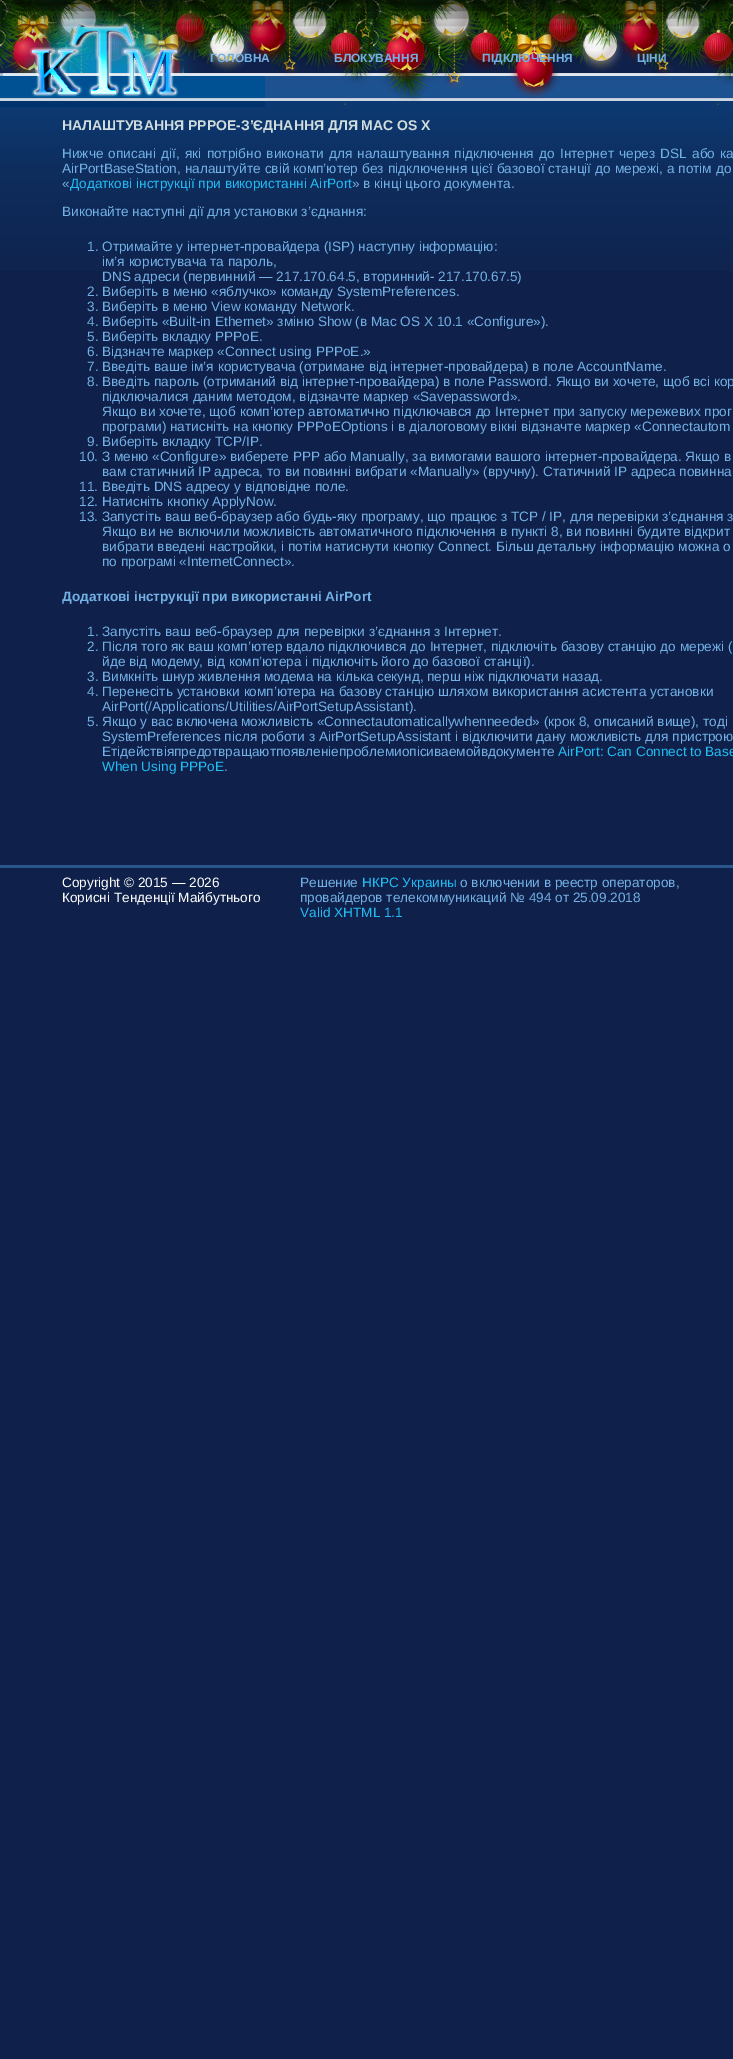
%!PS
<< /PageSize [733 2059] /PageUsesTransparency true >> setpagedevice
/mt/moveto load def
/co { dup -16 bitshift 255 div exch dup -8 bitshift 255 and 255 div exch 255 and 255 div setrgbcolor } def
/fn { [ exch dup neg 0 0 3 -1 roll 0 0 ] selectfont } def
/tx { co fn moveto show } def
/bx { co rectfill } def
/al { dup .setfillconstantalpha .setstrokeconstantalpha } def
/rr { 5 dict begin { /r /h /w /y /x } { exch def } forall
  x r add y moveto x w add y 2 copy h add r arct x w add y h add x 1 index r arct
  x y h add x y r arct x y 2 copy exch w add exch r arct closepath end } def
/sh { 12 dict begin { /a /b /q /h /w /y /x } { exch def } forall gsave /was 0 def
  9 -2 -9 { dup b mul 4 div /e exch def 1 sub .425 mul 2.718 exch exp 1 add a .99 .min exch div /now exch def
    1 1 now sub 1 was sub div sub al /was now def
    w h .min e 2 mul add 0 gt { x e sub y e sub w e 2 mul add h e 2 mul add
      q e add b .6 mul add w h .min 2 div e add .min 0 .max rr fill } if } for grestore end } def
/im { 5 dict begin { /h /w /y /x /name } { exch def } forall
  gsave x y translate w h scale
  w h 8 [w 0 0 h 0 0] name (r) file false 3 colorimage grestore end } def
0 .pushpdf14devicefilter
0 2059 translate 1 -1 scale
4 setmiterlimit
0 0 733 2059 16#0F214A bx
(media/1.raw) 265 73 468 34 im
(media/2.raw) 0 0 733 105 im
(media/4.raw) 7 0 50 73 im
(media/3.raw) 0 0 25 71 im
(media/6.raw) 54 0 49 48 im
(media/5.raw) 25 0 61 27 im
(media/7.raw) 137 0 50 73 im
(media/8.raw) 170 0 41 52 im
(media/14.raw) 204 6 46 66 im
(media/9.raw) 177 0 28 31 im
(media/11.raw) 243 0 49 63 im
(media/10.raw) 205 0 50 50 im
(media/12.raw) 287 0 46 49 im
(media/13.raw) 92 9 41 62 im
(media/17.raw) 325 10 40 61 im
(media/15.raw) 289 0 78 28 im
(media/16.raw) 367 0 6 69 im
(media/18.raw) 380 0 50 82 im
(media/3.raw) 373 0 25 71 im
(media/6.raw) 427 0 49 48 im
(media/5.raw) 398 0 61 27 im
(media/19.raw) 510 0 50 99 im
(media/8.raw) 543 0 41 52 im
(media/14.raw) 577 6 46 66 im
(media/9.raw) 550 0 28 31 im
(media/11.raw) 616 0 49 63 im
(media/10.raw) 578 0 50 50 im
(media/12.raw) 660 0 46 49 im
(media/13.raw) 465 9 41 62 im
(media/21.raw) 698 10 35 61 im
(media/20.raw) 662 0 71 28 im
(media/22.raw) 0 5 265 102 im
16#000000 co
0 -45 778 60 0 15 .75 sh
(media/23.raw) 0 107 733 164 im
0 865 733 3 16#29578B bx
(ГОЛОВНА) 210 62 /LiberationSans-Bold 12 16#72B0E5 tx
(БЛОКУВАННЯ) 334 62 /LiberationSans-Bold 12 16#72B0E5 tx
(ПІДКЛЮЧЕННЯ) 482 62 /LiberationSans-Bold 12 16#72B0E5 tx
(ЦІНИ) 637 62 /LiberationSans-Bold 12 16#72B0E5 tx
(НАЛАШТУВАННЯ PPPOE-З’ЄДНАННЯ ДЛЯ MAC OS X) 62 130 /LiberationSans-Bold 14 16#D1DDDD tx
/LiberationSans-Regular 13.6 fn
16#72B0E5 co
62 158 mt 1.5 0 32 (Нижче описані дії, які потрібно виконати для налаштування підключення до Інтернет через DSL або ка) widthshow
62 173 mt .25 0 32 (AirPortBaseStation, налаштуйте свій комп’ютер без підключення цієї базової станції до мережі, а потім до) widthshow
(«) 62 188 /LiberationSans-Regular 13.6 16#72B0E5 tx
(Додаткові інструкції при використанні AirPort) 70 188 /LiberationSans-Regular 13.6 16#22BCF5 tx
(» в кінці цього документа.) 352 188 /LiberationSans-Regular 13.6 16#72B0E5 tx
(Виконайте наступні дії для установки з’єднання:) 62 216 /LiberationSans-Regular 13.6 16#72B0E5 tx
(1. Отримайте у інтернет-провайдера \(ISP\) наступну інформацію:) 87 251 /LiberationSans-Regular 13.6 16#72B0E5 tx
(ім’я користувача та пароль,) 102 266 /LiberationSans-Regular 13.6 16#72B0E5 tx
(DNS адреси \(первинний — 217.170.64.5, вторинний- 217.170.67.5\)) 102 281 /LiberationSans-Regular 13.6 16#72B0E5 tx
(2. Виберіть в меню «яблучко» команду SystemPreferences.) 87 296 /LiberationSans-Regular 13.6 16#72B0E5 tx
(3. Виберіть в меню View команду Network.) 87 311 /LiberationSans-Regular 13.6 16#72B0E5 tx
(4. Виберіть «Built-in Ethernet» зміню Show \(в Mac OS X 10.1 «Configure»\).) 87 326 /LiberationSans-Regular 13.6 16#72B0E5 tx
(5. Виберіть вкладку PPPoE.) 87 341 /LiberationSans-Regular 13.6 16#72B0E5 tx
(6. Відзначте маркер «Connect using PPPoE.») 87 356 /LiberationSans-Regular 13.6 16#72B0E5 tx
(7. Введіть ваше ім’я користувача \(отримане від інтернет-провайдера\) в поле AccountName.) 87 371 /LiberationSans-Regular 13.6 16#72B0E5 tx
(8. Введіть пароль \(отриманий від інтернет-провайдера\) в поле Password. Якщо ви хочете, щоб всі кор) 87 386 /LiberationSans-Regular 13.6 16#72B0E5 tx
(підключалися даним методом, відзначте маркер «Savepassword».) 102 401 /LiberationSans-Regular 13.6 16#72B0E5 tx
(Якщо ви хочете, щоб комп’ютер автоматично підключався до Інтернет при запуску мережевих прог) 102 416 /LiberationSans-Regular 13.6 16#72B0E5 tx
(програми\) натисніть на кнопку PPPoEOptions і в діалоговому вікні відзначте маркер «Connectautom) 102 431 /LiberationSans-Regular 13.6 16#72B0E5 tx
(9. Виберіть вкладку TCP/IP.) 87 446 /LiberationSans-Regular 13.6 16#72B0E5 tx
(10. З меню «Configure» виберете PPP або Manually, за вимогами вашого інтернет-провайдера. Якщо в) 79 461 /LiberationSans-Regular 13.6 16#72B0E5 tx
(вам статичний IP адреса, то ви повинні вибрати «Manually» \(вручну\). Статичний IP адреса повинна) 102 476 /LiberationSans-Regular 13.6 16#72B0E5 tx
(11. Введіть DNS адресу у відповідне поле.) 79 491 /LiberationSans-Regular 13.6 16#72B0E5 tx
(12. Натисніть кнопку ApplyNow.) 79 506 /LiberationSans-Regular 13.6 16#72B0E5 tx
(13. Запустіть ваш веб-браузер або будь-яку програму, що працює з TCP / IP, для перевірки з’єднання з) 79 521 /LiberationSans-Regular 13.6 16#72B0E5 tx
(Якщо ви не включили можливість автоматичного підключення в пункті 8, ви повинні будите відкрит) 102 536 /LiberationSans-Regular 13.6 16#72B0E5 tx
(вибрати введені настройки, і потім натиснути кнопку Connect. Більш детальну інформацію можна о) 102 551 /LiberationSans-Regular 13.6 16#72B0E5 tx
(по програмі «InternetConnect».) 102 566 /LiberationSans-Regular 13.6 16#72B0E5 tx
(Додаткові інструкції при використанні AirPort) 62 601 /LiberationSans-Bold 13.6 16#72B0E5 tx
(1. Запустіть ваш веб-браузер для перевірки з’єднання з Інтернет.) 87 636 /LiberationSans-Regular 13.6 16#72B0E5 tx
(2. Після того як ваш комп’ютер вдало підключився до Інтернет, підключіть базову станцію до мережі \() 87 651 /LiberationSans-Regular 13.6 16#72B0E5 tx
(йде від модему, від комп’ютера і підключіть його до базової станції\).) 102 666 /LiberationSans-Regular 13.6 16#72B0E5 tx
(3. Вимкніть шнур живлення модема на кілька секунд, перш ніж підключати назад.) 87 681 /LiberationSans-Regular 13.6 16#72B0E5 tx
(4. Перенесіть установки комп’ютера на базову станцію шляхом використання асистента установки) 87 696 /LiberationSans-Regular 13.6 16#72B0E5 tx
(AirPort\(/Applications/Utilities/AirPortSetupAssistant\).) 102 711 /LiberationSans-Regular 13.6 16#72B0E5 tx
(5. Якщо у вас включена можливість «Connectautomaticallywhenneeded» \(крок 8, описаний вище\), тоді) 87 726 /LiberationSans-Regular 13.6 16#72B0E5 tx
(SystemPreferences після роботи з AirPortSetupAssistant і відключити дану можливість для пристрою) 102 741 /LiberationSans-Regular 13.6 16#72B0E5 tx
(Етідействіяпредотвращаютпоявленіепроблемиопісиваемойвдокументе) 102 756 /LiberationSans-Regular 13.6 16#72B0E5 tx
(AirPort: Can Connect to Base) 558 756 /LiberationSans-Regular 13.6 16#22BCF5 tx
(When Using PPPoE) 102 771 /LiberationSans-Regular 13.6 16#22BCF5 tx
(.) 224 771 /LiberationSans-Regular 13.6 16#72B0E5 tx
(Copyright © 2015 — 2026) 62 887 /LiberationSans-Regular 13.6 16#FFFFFF tx
(Корисні Тенденції Майбутнього) 62 902 /LiberationSans-Regular 13.6 16#FFFFFF tx
(Решение) 300 887 /LiberationSans-Regular 13.6 16#72B0E5 tx
(НКРС Украины) 362 887 /LiberationSans-Regular 13.6 16#22BCF5 tx
(о включении в реестр операторов,) 460 887 /LiberationSans-Regular 13.6 16#72B0E5 tx
(провайдеров телекоммуникаций № 494 от 25.09.2018) 300 902 /LiberationSans-Regular 13.6 16#72B0E5 tx
(Valid XHTML 1.1) 300 917 /LiberationSans-Regular 13.6 16#22BCF5 tx
.poppdf14devicefilter showpage
